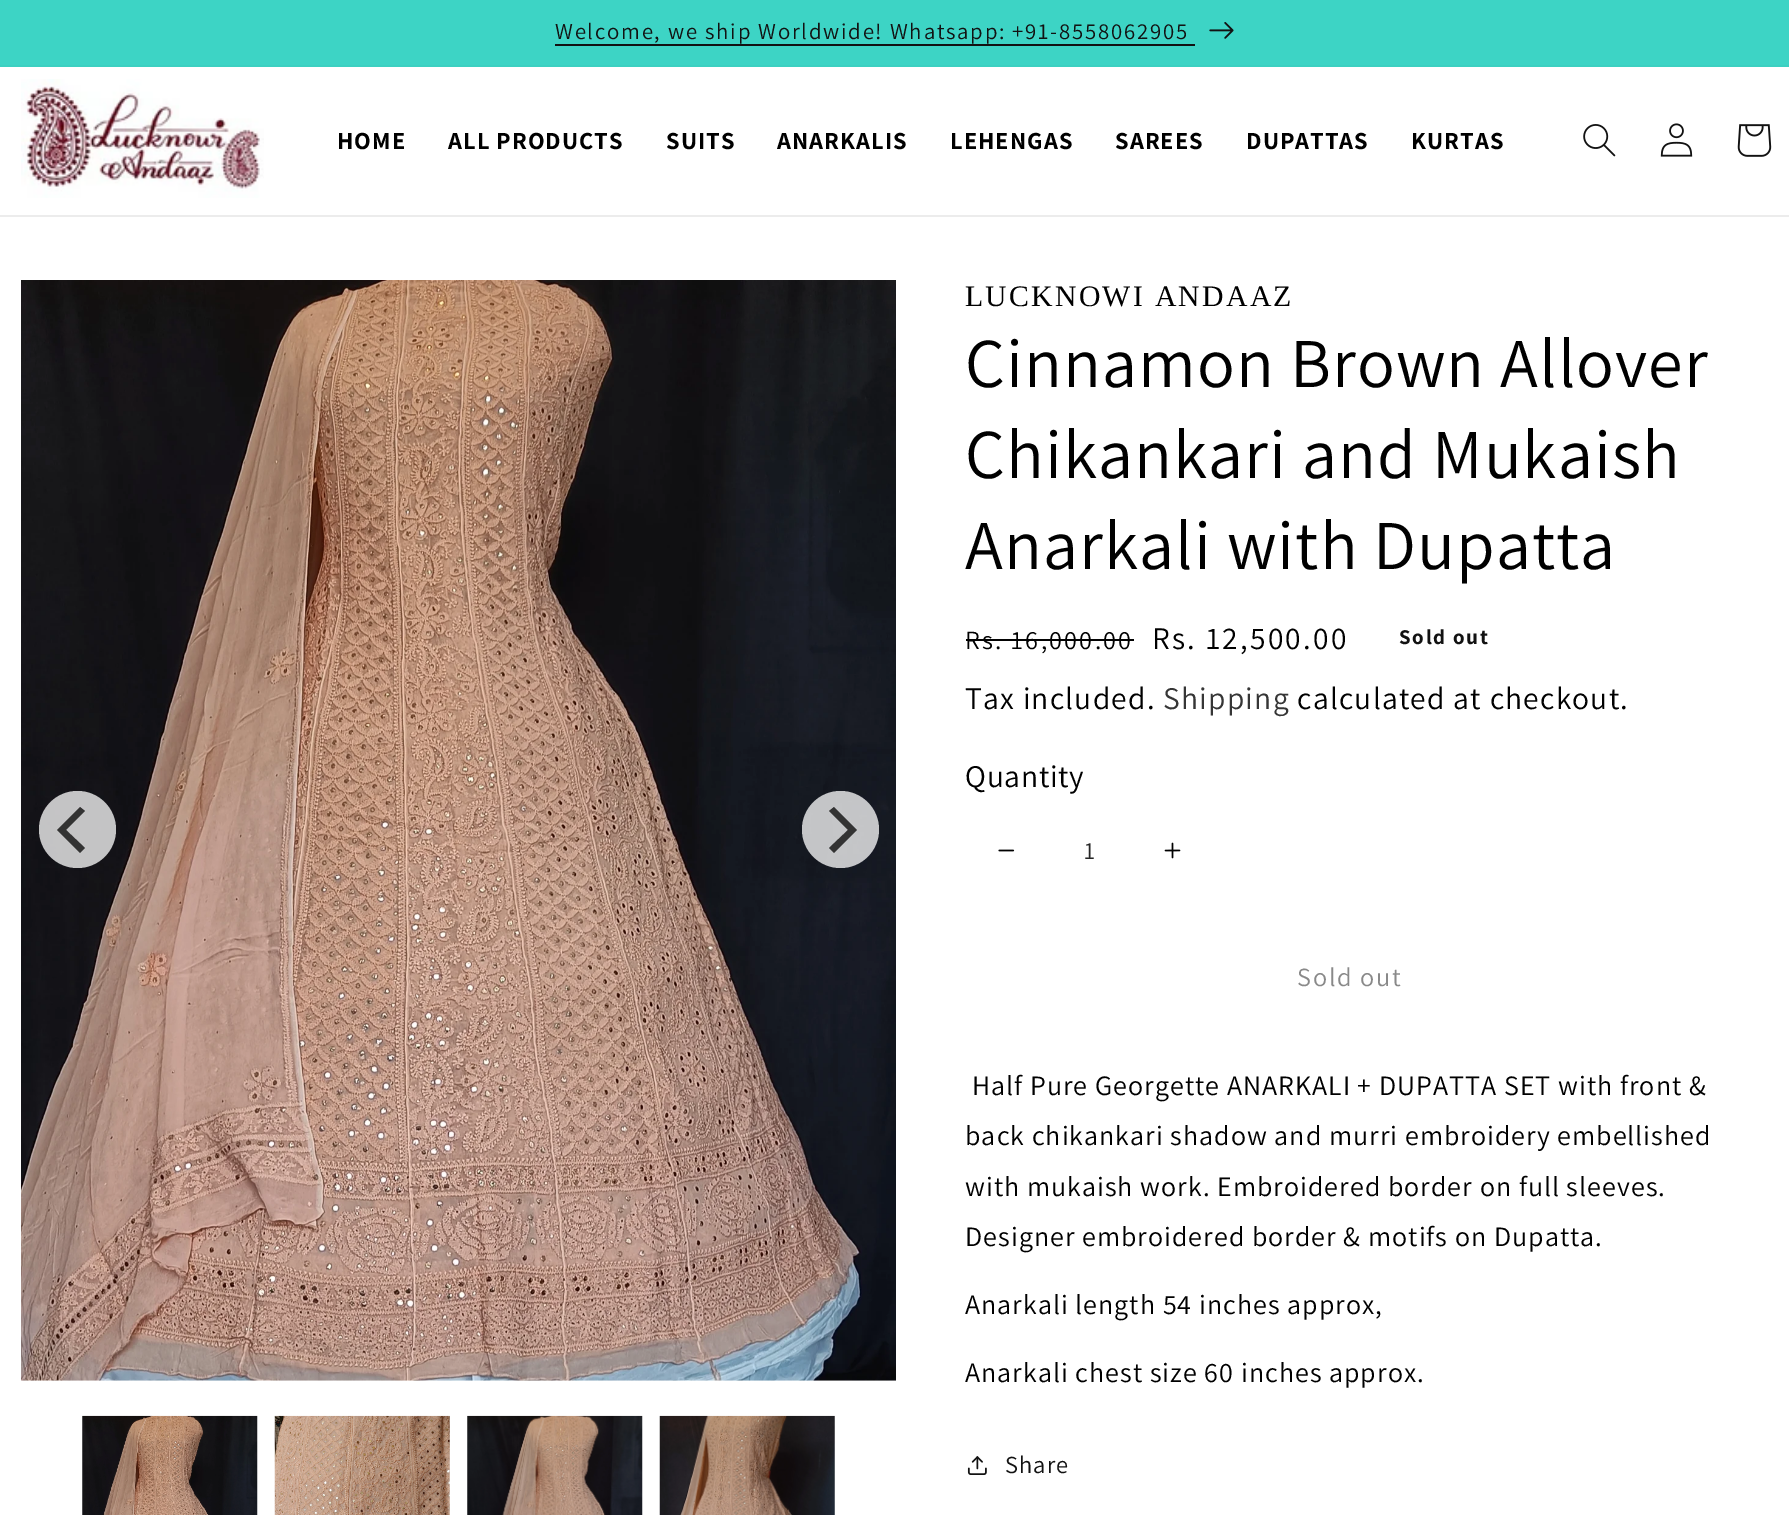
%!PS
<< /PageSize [1789 1515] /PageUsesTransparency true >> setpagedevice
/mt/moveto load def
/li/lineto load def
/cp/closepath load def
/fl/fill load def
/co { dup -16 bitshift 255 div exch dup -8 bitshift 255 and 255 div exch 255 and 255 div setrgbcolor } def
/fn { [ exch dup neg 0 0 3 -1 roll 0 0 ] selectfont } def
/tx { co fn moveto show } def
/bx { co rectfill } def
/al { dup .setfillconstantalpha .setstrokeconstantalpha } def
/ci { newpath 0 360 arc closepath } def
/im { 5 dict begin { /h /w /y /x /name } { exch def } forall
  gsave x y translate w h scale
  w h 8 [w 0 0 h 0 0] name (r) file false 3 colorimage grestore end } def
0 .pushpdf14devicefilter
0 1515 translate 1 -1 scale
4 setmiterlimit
0 0 1789 1515 16#FFFFFF bx
0 65 1789 2 16#3CD0C1 bx
0 0 1789 65 16#3DD4C5 bx
555 44 640 2 16#121212 bx
(media/1.raw) 1209 22 25 17 im
0 215 1789 2 16#ECECEC bx
(media/2.raw) 21 79 243 119 im
(media/3.raw) 1583 124 33 33 im
(media/4.raw) 1660 123 33 34 im
(media/5.raw) 1737 124 35 33 im
(media/6.raw) 21 280 875 1101 im
0.75 al
16#FFFFFF co
77.5 829.5 38.5 ci fl
1 al
16#333333 co
57 830 mt 80 853 li 85 848 li 66 830 li 85 811 li 80 807 li cp fl
0.75 al
16#FFFFFF co
840.5 829.5 38.5 ci fl
1 al
16#333333 co
857 830 mt 834 807 li 829 811 li 848 830 li 829 848 li 834 853 li cp fl
(media/7.raw) 82 1415 176 100 im
(media/8.raw) 274 1415 176 100 im
(media/9.raw) 467 1415 176 100 im
(media/10.raw) 659 1415 176 100 im
(media/11.raw) 998 849 17 3 im
(media/12.raw) 1164 842 17 17 im
(media/13.raw) 967 1456 20 19 im
/Assistant-Regular 22.75 fn
16#121212 co
555 39 mt 1.75 0 (Welcome, we ship Worldwide! Whatsapp: +91-8558062905) ashow
/Assistant-Bold 24.5 fn
16#000000 co
337 149 mt 1.05 0 (HOME) ashow
448 149 mt 1.05 0 (ALL PRODUCTS) ashow
666 149 mt 1.05 0 (SUITS) ashow
777 149 mt 1.05 0 (ANARKALIS) ashow
950 149 mt 1.05 0 (LEHENGAS) ashow
1115 149 mt 1.05 0 (SAREES) ashow
1246 149 mt 1.05 0 (DUPATTAS) ashow
1411 149 mt 1.05 0 (KURTAS) ashow
/LiberationSerif-Regular 29.75 fn
965 306 mt 2.25 0 (LUCKNOWI ANDAAZ) ashow
/Assistant-Regular 70 fn
965 387 mt 1.05 0 (Cinnamon Brown Allover) ashow
965 478 mt 1.05 0 (Chikankari and Mukaish) ashow
965 569 mt 1.05 0 (Anarkali with Dupatta) ashow
/Assistant-Regular 26.25 fn
965 649 mt 2.25 0 (Rs. 16,000.00) ashow
966 639 168 2 16#020202 bx
/Assistant-Regular 31.5 fn
16#000000 co
1152 649 mt 2.25 0 (Rs. 12,500.00) ashow
/Assistant-Bold 21 fn
16#121212 co
1399 644 mt 1.75 0 (Sold out) ashow
/Assistant-Regular 31.5 fn
16#000000 co
965 709 mt 1.25 0 (Tax included.) ashow
16#363636 co
1163 709 mt 1.25 0 (Shipping) ashow
16#000000 co
1297 709 mt 1.25 0 (calculated at checkout.) ashow
965 787 mt .75 0 (Quantity) ashow
(1) 1084 859 /Assistant-Regular 24.5 16#262626 tx
/Assistant-Regular 26.25 fn
16#898989 co
1297 986 mt 1.75 0 (Sold out) ashow
/Assistant-Regular 28 fn
16#000000 co
972 1095 mt 1.05 0 (Half Pure Georgette ANARKALI + DUPATTA SET with front &) ashow
965 1145 mt 1.05 0 (back chikankari shadow and murri embroidery embellished) ashow
965 1196 mt 1.05 0 (with mukaish work. Embroidered border on full sleeves.) ashow
965 1246 mt 1.05 0 (Designer embroidered border & motifs on Dupatta.) ashow
965 1314 mt 1.05 0 (Anarkali length 54 inches approx,) ashow
965 1382 mt 1.05 0 (Anarkali chest size 60 inches approx.) ashow
/Assistant-Regular 24.5 fn
16#121212 co
1005 1473 mt 1.05 0 (Share) ashow
.poppdf14devicefilter showpage
